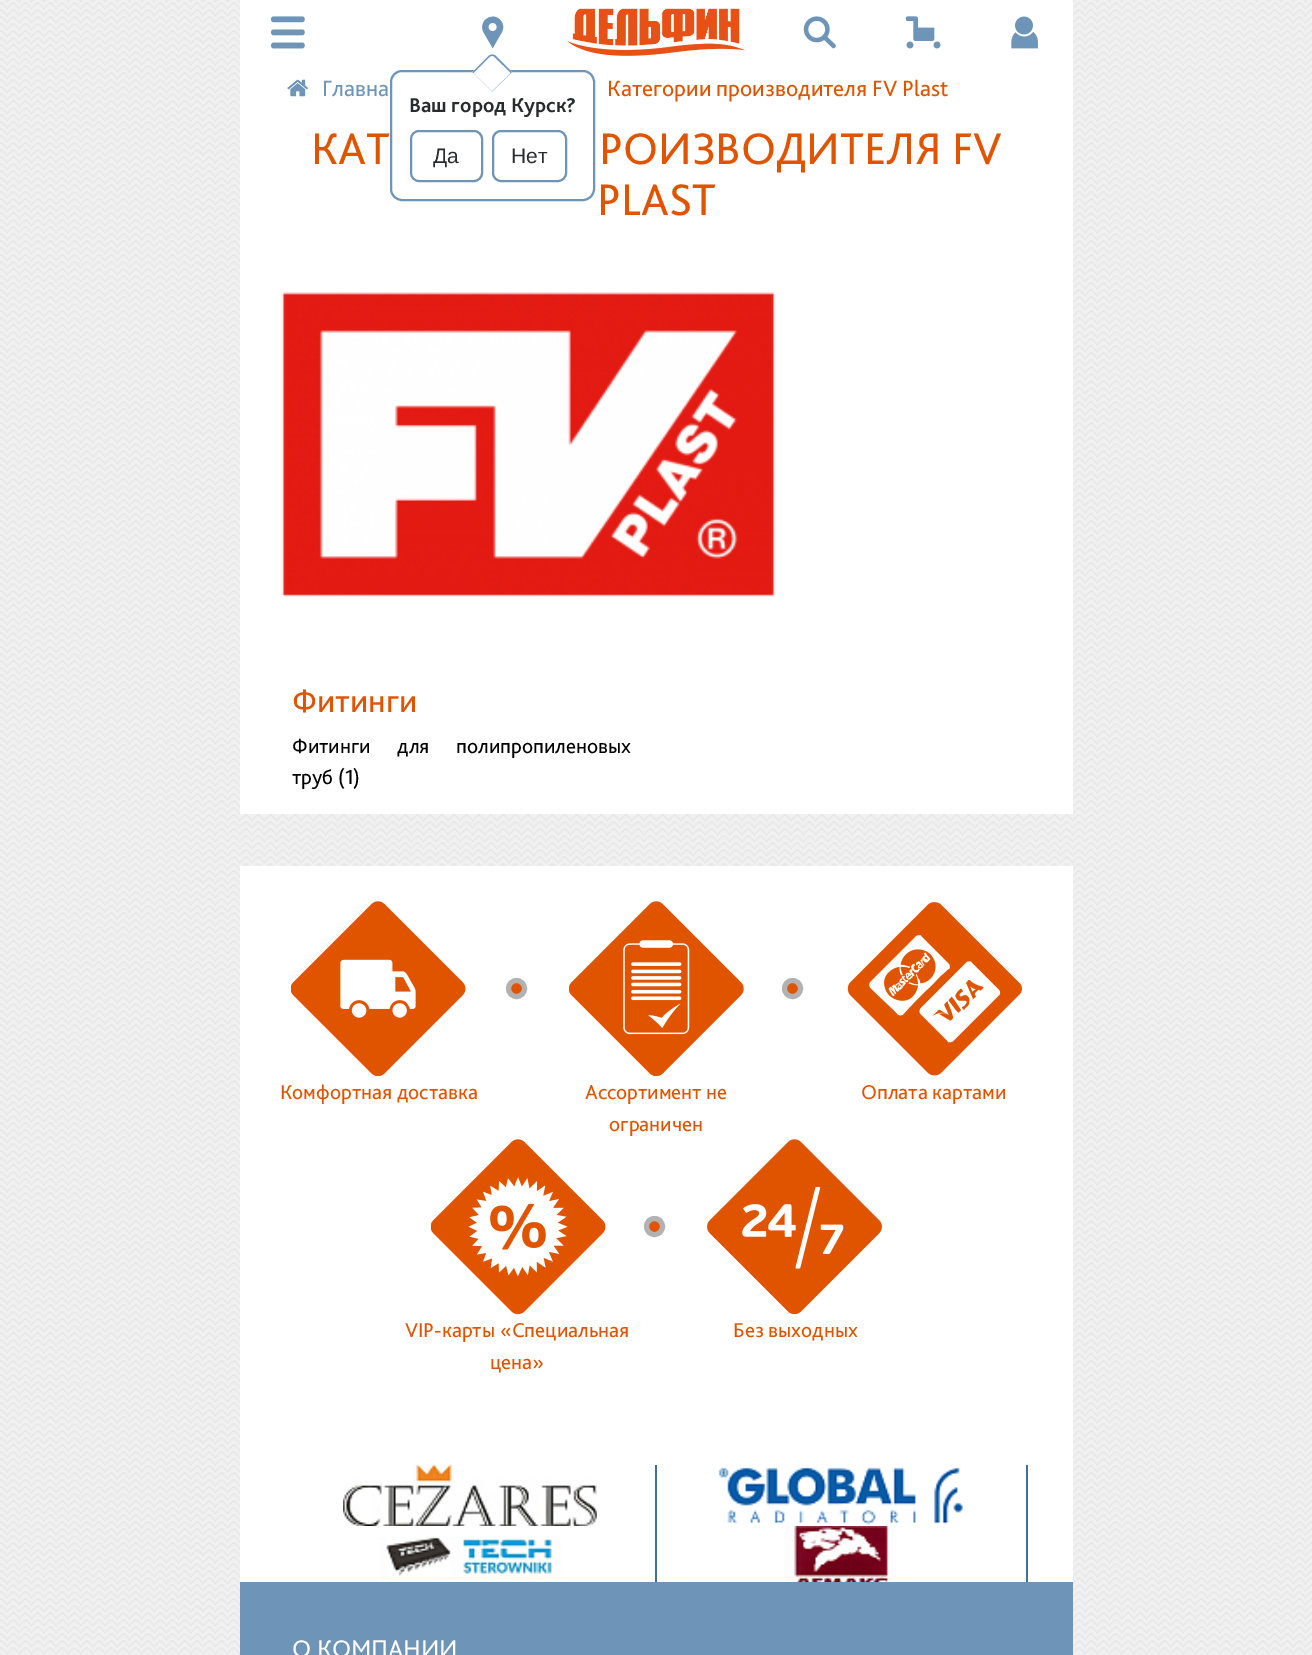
%!PS
<< /PageSize [1312 1655] >> setpagedevice
/mt/moveto load def
/li/lineto load def
/ct/curveto load def
/cp/closepath load def
/fl/fill load def
/st/stroke load def
/gs/gsave load def
/gr/grestore load def
/lw/setlinewidth load def
/co { dup -16 bitshift 255 div exch dup -8 bitshift 255 and 255 div exch 255 and 255 div setrgbcolor } def
/fn { [ exch dup neg 0 0 3 -1 roll 0 0 ] selectfont } def
/tx { co fn moveto show } def
/bx { co rectfill } def
/ci { newpath 0 360 arc closepath } def
/rr { 5 dict begin { /r /h /w /y /x } { exch def } forall
  x r add y moveto x w add y 2 copy h add r arct x w add y h add x 1 index r arct
  x y h add x y r arct x y 2 copy exch w add exch r arct closepath end } def
/im { 5 dict begin { /h /w /y /x /name } { exch def } forall
  gsave x y translate w h scale
  w h 8 [w 0 0 h 0 0] name (r) file false 3 colorimage grestore end } def
0 1655 translate 1 -1 scale
4 setmiterlimit
0 0 1312 1655 16#FFFFFF bx
(media/1.raw) 0 0 1312 1655 im
240 0 833 814 16#FFFFFF bx
(media/2.raw) 287 79 21 18 im
(media/3.raw) 281 291 495 306 im
240 866 833 716 16#FFFFFF bx
16#E05400 co
516.5 988.5 8 ci gs fl gr
16#B2B2B2 co
5 lw
st
(media/4.raw) 291 901 175 175 im
16#E05400 co
792.5 988.5 8 ci gs fl gr
16#B2B2B2 co
st
(media/5.raw) 569 901 175 175 im
(media/6.raw) 847 902 175 174 im
16#E05400 co
654.5 1226.5 8 ci gs fl gr
16#B2B2B2 co
st
(media/7.raw) 431 1139 175 175 im
(media/8.raw) 707 1139 175 175 im
655 1465 2 122 16#437099 bx
(media/9.raw) 343 1464 254 62 im
1026 1465 2 122 16#437099 bx
(media/10.raw) 718 1467 245 58 im
(media/11.raw) 378 1537 184 45 im
(media/12.raw) 784 1526 112 56 im
(media/13.raw) 270 16 35 33 im
(media/14.raw) 482 16 22 33 im
(media/15.raw) 803 16 33 33 im
(media/16.raw) 905 16 36 33 im
(media/17.raw) 1011 16 27 33 im
(media/18.raw) 567 8 179 48 im
16#6E95B8 co
2 lw
391 71 203 129 11 rr st
16#FFFFFF co
472.5 72 mt 488.5 56 li 490.5 54 494 54 496 56 ct 512 72 li 492 91.5 li cp fl
16#6E95B8 co
472.5 72 mt 488.5 56 li 490.5 54 494 54 496 56 ct 512 72 li 492 91.5 li cp 473.5 73 mt 489.5 57 li 491 55.5 493.5 55.5 494.5 57 ct 511 73 li 492 91.5 li cp eofill
411 131 71 50 8 rr st
493 131 73 50 8 rr st
240 1582 833 73 16#6E95B8 bx
(Главна) 322 96 /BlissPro-Regular 23.1 16#6E95B8 tx
(Категории производителя FV Plast) 607 96 /BlissPro-Regular 23.1 16#E05400 tx
(КАТ) 311 164 /BlissPro-Regular 46.25 16#E05400 tx
(РОИЗВОДИТЕЛЯ FV) 599 164 /BlissPro-Regular 46.25 16#E05400 tx
(PLAST) 597 215 /BlissPro-Regular 46.25 16#E05400 tx
(Фитинги) 292 712 /BlissPro-Regular 33.5 16#E05400 tx
/BlissPro-Regular 21 fn
16#000000 co
292 753 mt 22 0 32 (Фитинги для полипропиленовых) widthshow
(труб \(1\)) 292 784 /BlissPro-Regular 21 16#000000 tx
(Комфортная доставка) 280 1099 /BlissPro-Regular 21 16#E05400 tx
(Ассортимент не) 585 1099 /BlissPro-Regular 21 16#E05400 tx
(ограничен) 609 1131 /BlissPro-Regular 21 16#E05400 tx
(Оплата картами) 861 1099 /BlissPro-Regular 21 16#E05400 tx
(VIP-карты «Специальная) 405 1337 /BlissPro-Regular 21 16#E05400 tx
(цена») 490 1369 /BlissPro-Regular 21 16#E05400 tx
(Без выходных) 733 1337 /BlissPro-Regular 21 16#E05400 tx
(Ваш город Курск?) 409 112 /BlissPro-Bold 21 16#292B2C tx
(Да) 433 163 /LiberationSans-Regular 21 16#292B2C tx
(Нет) 511 163 /LiberationSans-Regular 21 16#292B2C tx
(О КОМПАНИИ) 292 1657 /BlissPro-Regular 25.25 16#FFFFFF tx
showpage
